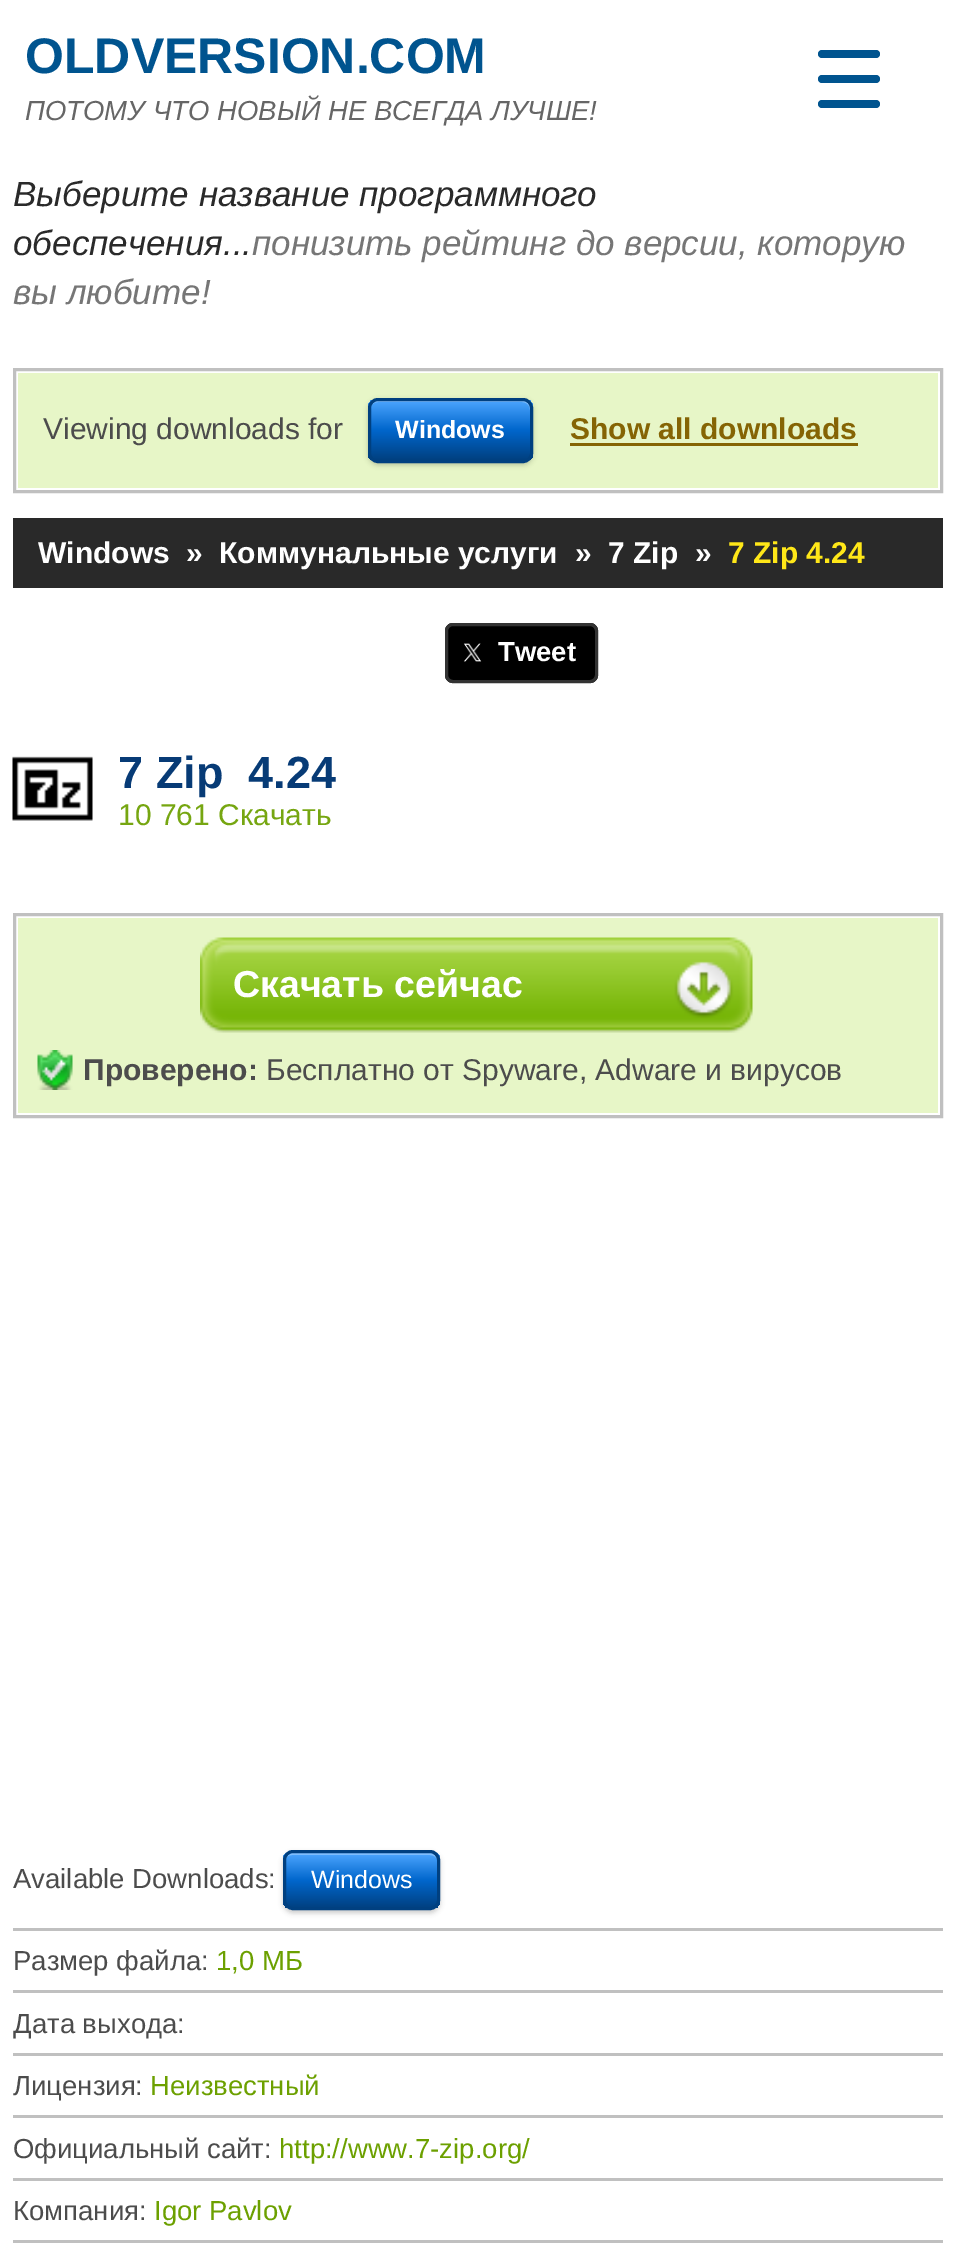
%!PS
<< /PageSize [953 2253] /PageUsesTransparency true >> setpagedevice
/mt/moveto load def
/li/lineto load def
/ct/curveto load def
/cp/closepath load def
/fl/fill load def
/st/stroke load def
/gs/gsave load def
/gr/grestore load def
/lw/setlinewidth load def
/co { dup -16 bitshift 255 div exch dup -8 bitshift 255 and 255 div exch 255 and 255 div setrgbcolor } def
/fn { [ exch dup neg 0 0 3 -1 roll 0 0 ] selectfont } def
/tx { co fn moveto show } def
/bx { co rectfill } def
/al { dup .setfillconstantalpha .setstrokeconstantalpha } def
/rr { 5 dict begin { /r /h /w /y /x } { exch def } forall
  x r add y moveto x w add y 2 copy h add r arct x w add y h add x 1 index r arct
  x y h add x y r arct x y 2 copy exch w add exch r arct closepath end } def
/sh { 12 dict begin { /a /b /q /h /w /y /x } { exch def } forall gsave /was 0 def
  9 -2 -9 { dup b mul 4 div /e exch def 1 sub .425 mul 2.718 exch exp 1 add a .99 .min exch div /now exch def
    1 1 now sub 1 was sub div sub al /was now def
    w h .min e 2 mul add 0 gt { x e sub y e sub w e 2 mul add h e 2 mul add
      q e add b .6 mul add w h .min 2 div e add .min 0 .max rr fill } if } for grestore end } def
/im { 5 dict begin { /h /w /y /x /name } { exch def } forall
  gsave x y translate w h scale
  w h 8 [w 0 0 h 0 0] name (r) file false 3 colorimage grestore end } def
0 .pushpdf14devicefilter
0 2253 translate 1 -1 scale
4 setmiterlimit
0 0 953 2253 16#FFFFFF bx
16#00548F co
818 50 62 8 4 rr fl
818 75 62 8 4 rr fl
818 100 62 8 4 rr fl
16#C0C0C0 co
3 lw
14.5 369.5 927 122 rectstroke
18 373 920 115 16#E7F6C7 bx
16#000000 co
368 400 165 65 10 2.5 .2 sh
gs
368 398 165 65 10 rr clip newpath
gs 368 400 mt 533 400 li 533 460 li 368 460 li cp clip newpath
<< /ShadingType 2 /ColorSpace /DeviceRGB /Coords [450 400 450 460] /Extend [true true] /Function << /FunctionType 3 /Domain [0 1] /Functions [<< /FunctionType 2 /Domain [0 1] /C0 [.302 .651 1] /C1 [0 .4 .8] /N 1 >> << /FunctionType 2 /Domain [0 1] /C0 [0 .4 .8] /C1 [0 .251 .502] /N 1 >>] /Bounds [.5] /Encode [0 1 0 1] >> >> shfill gr
gr
0.3 al
16#FFFFFF co
378 402 mt 522 402 li 527 402 530 406 530 410 ct 530 408 li 530 404 526 400 522 400 ct 378 400 li 374 400 370 404 370 408 ct 370 410 li 370 406 373 402 378 402 ct cp fl
1 al
16#004080 co
369.5 399.5 162 62 8.5 rr st
570 443 288 3 16#856404 bx
13 518 930 70 16#292929 bx
16#000000 co
445 623 153 60 8 rr fl
(media/1.raw) 463 643 19 19 im
16#333333 co
446.5 624.5 150 57 6.5 rr st
(media/2.raw) 12 756 81 65 im
16#C0C0C0 co
14.5 914.5 927 202 rectstroke
18 918 920 195 16#E7F6C7 bx
(media/3.raw) 200 937 553 96 im
(media/4.raw) 37 1050 36 40 im
13 1928 930 3 16#C0C0C0 bx
16#000000 co
283 1853 157 60 10 2.5 .2 sh
gs
283 1850 157 60 10 rr clip newpath
gs 283 1853 mt 440 1853 li 440 1908 li 283 1908 li cp clip newpath
<< /ShadingType 2 /ColorSpace /DeviceRGB /Coords [361 1853 361 1908] /Extend [true true] /Function << /FunctionType 3 /Domain [0 1] /Functions [<< /FunctionType 2 /Domain [0 1] /C0 [.302 .651 1] /C1 [0 .4 .8] /N 1 >> << /FunctionType 2 /Domain [0 1] /C0 [0 .4 .8] /C1 [0 .251 .502] /N 1 >>] /Bounds [.5] /Encode [0 1 0 1] >> >> shfill gr
gr
0.3 al
16#FFFFFF co
292 1855 mt 430 1855 li 434 1855 438 1858 438 1862 ct 438 1847 414 1853 407 1853 ct 316 1853 li 309 1853 285 1847 285 1862 ct 285 1858 288 1855 292 1855 ct cp fl
1 al
16#004080 co
284.5 1851.5 154 57 8.5 rr st
13 1990 930 3 16#C0C0C0 bx
13 2053 930 3 16#C0C0C0 bx
13 2115 930 3 16#C0C0C0 bx
13 2178 930 3 16#C0C0C0 bx
13 2240 930 3 16#C0C0C0 bx
(OLDVERSION.COM) 25 73 /LiberationSans-Bold 50 16#00548F tx
(ПОТОМУ ЧТО НОВЫЙ НЕ ВСЕГДА ЛУЧШЕ!) 25 120 /LiberationSans-Italic 27.5 16#666666 tx
(Выберите название программного) 13 206 /LiberationSans-Italic 35 16#2A2A2A tx
(обеспечения...) 13 255 /LiberationSans-Italic 35 16#2A2A2A tx
(понизить рейтинг до версии, которую) 252 255 /LiberationSans-Italic 35 16#767676 tx
(вы любите!) 13 304 /LiberationSans-Italic 35 16#767676 tx
(Viewing downloads for) 43 439 /LiberationSans-Regular 30 16#4C4C4C tx
(Windows) 395 438 /LiberationSans-Bold 25 16#FFFFFF tx
(Show all downloads) 570 439 /LiberationSans-Bold 30 16#856404 tx
(Windows) 38 563 /LiberationSans-Bold 30 16#FFFFFF tx
(») 186 563 /LiberationSans-Bold 30 16#FFFFFF tx
(Коммунальные услуги) 219 563 /LiberationSans-Bold 30 16#FFFFFF tx
(») 575 563 /LiberationSans-Bold 30 16#FFFFFF tx
(7 Zip) 608 563 /LiberationSans-Bold 30 16#FFFFFF tx
(») 695 563 /LiberationSans-Bold 30 16#FFFFFF tx
(7 Zip 4.24) 728 563 /LiberationSans-Bold 30 16#FFE718 tx
(Tweet) 498 661 /LiberationSans-Bold 27.5 16#FFFFFF tx
(7 Zip) 118 788 /LiberationSans-Bold 45 16#073B76 tx
(4.24) 248 788 /LiberationSans-Bold 45 16#073B76 tx
(10 761 Скачать) 118 825 /LiberationSans-Regular 30 16#76A611 tx
(Скачать сейчас) 233 997 /LiberationSans-Bold 37.5 16#FFFFFF tx
(Проверено:) 83 1080 /LiberationSans-Bold 30 16#4C4C4C tx
(Бесплатно от Spyware, Adware и вирусов) 266 1080 /LiberationSans-Regular 30 16#4C4C4C tx
(Available Downloads:) 13 1888 /LiberationSans-Regular 27.5 16#4C4C4C tx
(Windows) 311 1888 /LiberationSans-Regular 25 16#FFFFFF tx
(Размер файла:) 13 1970 /LiberationSans-Regular 27.5 16#4C4C4C tx
(1,0 МБ) 216 1970 /LiberationSans-Regular 27.5 16#6CA000 tx
(Дата выхода:) 13 2033 /LiberationSans-Regular 27.5 16#4C4C4C tx
(Лицензия:) 13 2095 /LiberationSans-Regular 27.5 16#4C4C4C tx
(Неизвестный) 150 2095 /LiberationSans-Regular 27.5 16#6CA000 tx
(Официальный сайт:) 13 2158 /LiberationSans-Regular 27.5 16#4C4C4C tx
(http://www.7-zip.org/) 279 2158 /LiberationSans-Regular 27.5 16#6CA000 tx
(Компания:) 13 2220 /LiberationSans-Regular 27.5 16#4C4C4C tx
(Igor Pavlov) 154 2220 /LiberationSans-Regular 27.5 16#6CA000 tx
.poppdf14devicefilter showpage
